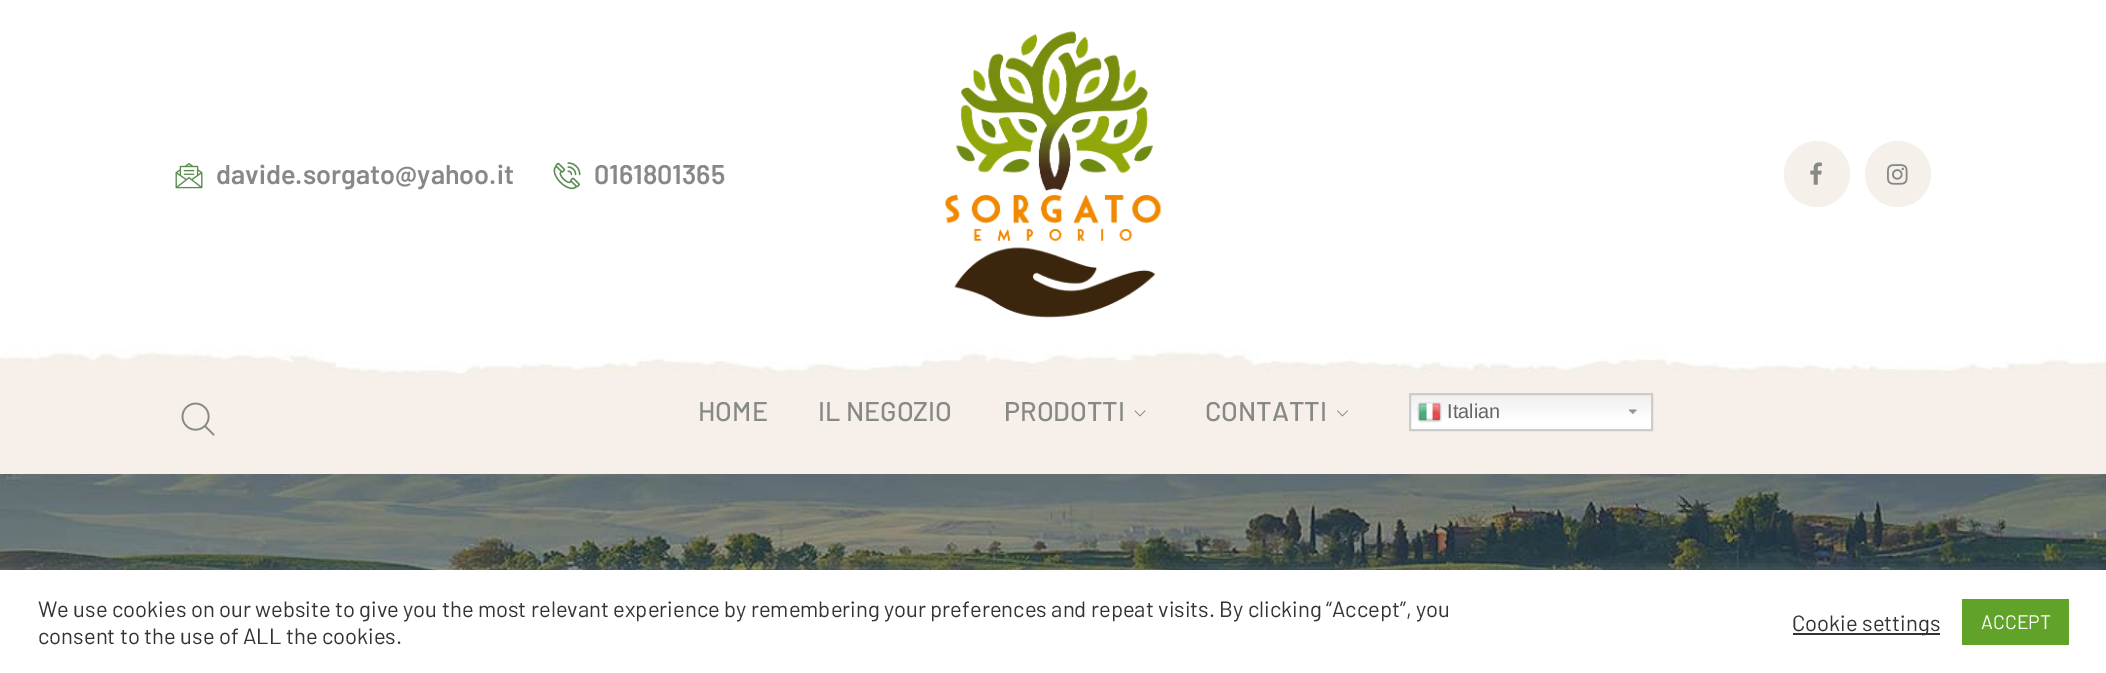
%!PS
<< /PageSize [2106 673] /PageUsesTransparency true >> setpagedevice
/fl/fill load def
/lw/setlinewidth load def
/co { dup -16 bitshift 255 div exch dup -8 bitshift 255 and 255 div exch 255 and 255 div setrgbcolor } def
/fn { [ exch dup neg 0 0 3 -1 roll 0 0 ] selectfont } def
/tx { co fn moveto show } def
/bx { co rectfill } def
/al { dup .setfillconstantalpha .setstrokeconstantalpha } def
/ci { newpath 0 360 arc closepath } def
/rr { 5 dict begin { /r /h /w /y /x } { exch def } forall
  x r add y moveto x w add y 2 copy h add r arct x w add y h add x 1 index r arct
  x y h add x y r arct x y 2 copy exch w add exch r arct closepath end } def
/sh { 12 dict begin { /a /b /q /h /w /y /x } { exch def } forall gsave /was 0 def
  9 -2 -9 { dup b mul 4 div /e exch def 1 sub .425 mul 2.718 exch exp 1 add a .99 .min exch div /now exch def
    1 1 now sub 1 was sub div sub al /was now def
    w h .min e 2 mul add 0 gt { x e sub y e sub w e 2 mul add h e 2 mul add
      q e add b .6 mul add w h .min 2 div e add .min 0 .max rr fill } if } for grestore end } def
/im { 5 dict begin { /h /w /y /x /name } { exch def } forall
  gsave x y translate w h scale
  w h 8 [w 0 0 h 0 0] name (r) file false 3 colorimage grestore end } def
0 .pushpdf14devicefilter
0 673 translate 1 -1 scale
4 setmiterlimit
0 0 2106 673 16#FFFFFF bx
(media/1.raw) 175 163 28 26 im
(media/2.raw) 553 162 28 28 im
(media/3.raw) 944 31 218 287 im
16#F5F0E9 co
1817 174 33 ci fl
(media/4.raw) 1810 162 12 23 im
1898 174 33 ci fl
(media/5.raw) 1887 164 21 21 im
(media/6.raw) 0 350 2106 124 im
(media/7.raw) 181 402 34 34 im
(media/8.raw) 1134 410 12 7 im
(media/9.raw) 1337 410 11 7 im
1411 421 240 8 16#FFFFFF bx
(media/10.raw) 1408 393 243 28 im
(media/11.raw) 1629 409 8 5 im
16#CCCCCC co
2 lw
1410 394 242 36 rectstroke
(media/12.raw) 1417 402 25 21 im
(media/13.raw) 0 474 2106 96 im
16#ACABAB co
0 569 2106 103 0 7.5 .3 sh
0 570 2106 103 16#FFFFFF bx
1793 633 147 2 16#333333 bx
1962 599 107 46 16#61A229 bx
(davide.sorgato@yahoo.it) 216 184 /Barlow-SemiBold 27 16#878986 tx
(0161801365) 594 184 /Barlow-SemiBold 27 16#878986 tx
(HOME) 698 421 /Barlow-Medium 27 16#878986 tx
(IL NEGOZIO) 818 421 /Barlow-Medium 27 16#878986 tx
(PRODOTTI) 1004 421 /Barlow-Medium 27 16#878986 tx
(CONTATTI) 1205 421 /Barlow-Medium 27 16#878986 tx
(Italian) 1447 418 /LiberationSans-Regular 20 16#666666 tx
(We use cookies on our website to give you the most relevant experience by remembering your preferences and repeat visits. By clicking “Accept”, you) 38 617 /Barlow-Regular 22 16#333333 tx
(consent to the use of ALL the cookies.) 38 644 /Barlow-Regular 22 16#333333 tx
(Cookie settings) 1792 631 /Barlow-Regular 22 16#333333 tx
(ACCEPT) 1981 629 /Barlow-Regular 19.5 16#FFFFFF tx
.poppdf14devicefilter showpage
